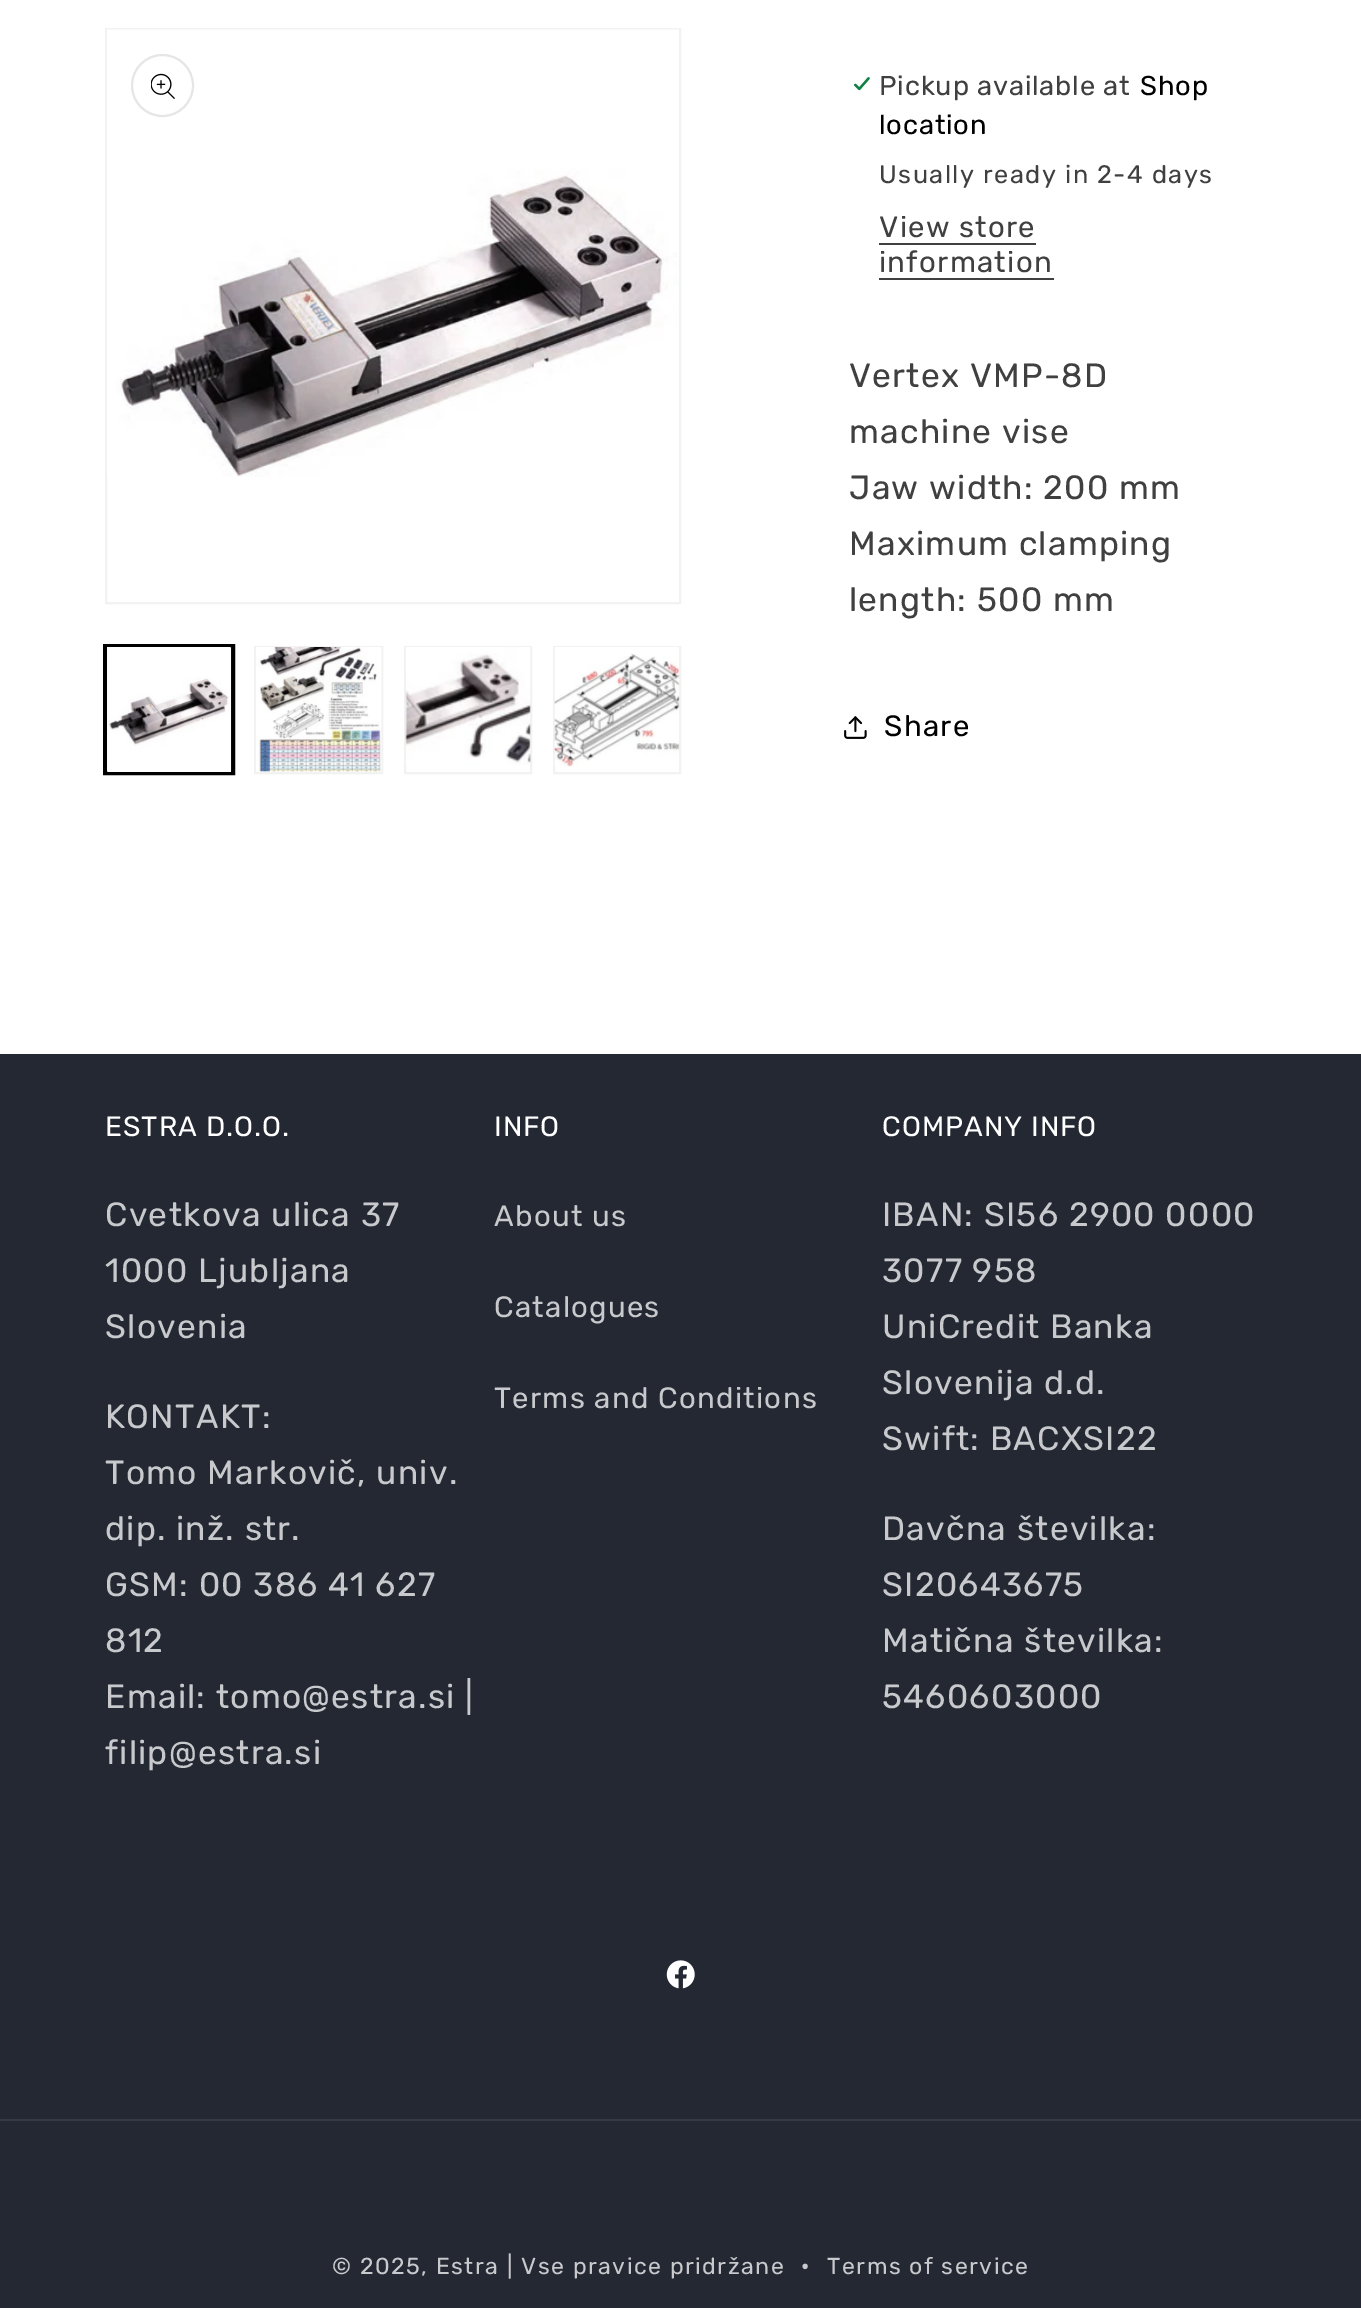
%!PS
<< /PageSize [1361 2308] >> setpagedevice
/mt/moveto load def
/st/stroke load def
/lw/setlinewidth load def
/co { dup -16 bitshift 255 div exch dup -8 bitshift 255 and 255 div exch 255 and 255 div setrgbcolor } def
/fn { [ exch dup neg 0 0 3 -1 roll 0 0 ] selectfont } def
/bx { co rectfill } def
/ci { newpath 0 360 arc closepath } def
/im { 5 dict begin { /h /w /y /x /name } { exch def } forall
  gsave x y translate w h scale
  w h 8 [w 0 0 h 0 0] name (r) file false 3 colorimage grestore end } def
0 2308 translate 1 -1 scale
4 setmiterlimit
0 0 1361 2308 16#FFFFFF bx
16#F2F2F2 co
2 lw
106 29 574 574 rectstroke
(media/1.raw) 107 29 572 448 im
16#E6E6E6 co
162.5 85.5 30.5 ci st
(media/2.raw) 151 73 24 26 im
16#000000 co
104 645 130 129 rectstroke
106 647 126 126 rectstroke
(media/3.raw) 107 647 125 124 im
16#F2F2F2 co
255 647 127 126 rectstroke
(media/4.raw) 256 647 126 125 im
405 647 126 126 rectstroke
(media/5.raw) 405 647 126 118 im
554 647 126 126 rectstroke
(media/6.raw) 554 647 126 120 im
(media/7.raw) 853 77 18 14 im
879 243 157 2 16#404040 bx
879 278 175 2 16#404040 bx
(media/8.raw) 844 716 23 23 im
0 1054 1361 1254 16#242833 bx
(media/9.raw) 666 1960 29 29 im
0 2119 1361 2 16#363943 bx
/Rubik-Regular 27.25 fn
16#404040 co
879 95 mt .8 0 (Pickup available at) ashow
16#000000 co
1140 95 mt .8 0 (Shop) ashow
879 134 mt .8 0 (location) ashow
/Rubik-Regular 25.25 fn
16#404040 co
879 183 mt 1.5 0 (Usually ready in 2-4 days) ashow
/Rubik-Regular 29.4 fn
879 237 mt 1.25 0 (View store) ashow
879 272 mt 1.25 0 (information) ashow
/Rubik-Regular 33.6 fn
849 387 mt 1.25 0 (Vertex VMP-8D) ashow
849 443 mt 1.25 0 (machine vise) ashow
849 499 mt 1.25 0 (Jaw width: 200 mm) ashow
849 555 mt 1.25 0 (Maximum clamping) ashow
849 611 mt 1.25 0 (length: 500 mm) ashow
/Rubik-Regular 29.4 fn
16#000000 co
884 736 mt 1.25 0 (Share) ashow
/Rubik-Regular 28 fn
16#FFFFFF co
105 1136 mt 1 0 (ESTRA D.O.O.) ashow
/Rubik-Regular 33.6 fn
16#C8C9CC co
105 1226 mt 1.25 0 (Cvetkova ulica 37) ashow
105 1282 mt 1.25 0 (1000 Ljubljana) ashow
105 1338 mt 1.25 0 (Slovenia) ashow
105 1428 mt 1.25 0 (KONTAKT:) ashow
105 1484 mt 1.25 0 (Tomo Markovič, univ.) ashow
105 1540 mt 1.25 0 (dip. inž. str.) ashow
105 1596 mt 1.25 0 (GSM: 00 386 41 627) ashow
105 1652 mt 1.25 0 (812) ashow
105 1708 mt 1.25 0 (Email: tomo@estra.si |) ashow
105 1764 mt 1.25 0 (filip@estra.si) ashow
/Rubik-Regular 28 fn
16#FFFFFF co
494 1136 mt 1 0 (INFO) ashow
/Rubik-Regular 29.4 fn
16#C8C9CC co
494 1226 mt 1.25 0 (About us) ashow
494 1317 mt 1.25 0 (Catalogues) ashow
494 1408 mt 1.25 0 (Terms and Conditions) ashow
/Rubik-Regular 28 fn
16#FFFFFF co
882 1136 mt 1 0 (COMPANY INFO) ashow
/Rubik-Regular 33.6 fn
16#C8C9CC co
882 1226 mt 1.25 0 (IBAN: SI56 2900 0000) ashow
882 1282 mt 1.25 0 (3077 958) ashow
882 1338 mt 1.25 0 (UniCredit Banka) ashow
882 1394 mt 1.25 0 (Slovenija d.d.) ashow
882 1450 mt 1.25 0 (Swift: BACXSI22) ashow
882 1540 mt 1.25 0 (Davčna številka:) ashow
882 1596 mt 1.25 0 (SI20643675) ashow
882 1652 mt 1.25 0 (Matična številka:) ashow
882 1708 mt 1.25 0 (5460603000) ashow
/Rubik-Regular 23.1 fn
332 2274 mt 1.5 0 (© 2025, Estra) ashow
507 2274 mt 1.5 0 (| Vse pravice pridržane) ashow
/Rubik-Regular 25.25 fn
801 2274 mt 1.5 0 (·) ashow
/Rubik-Regular 23.1 fn
827 2274 mt 1.5 0 (Terms of service) ashow
showpage
